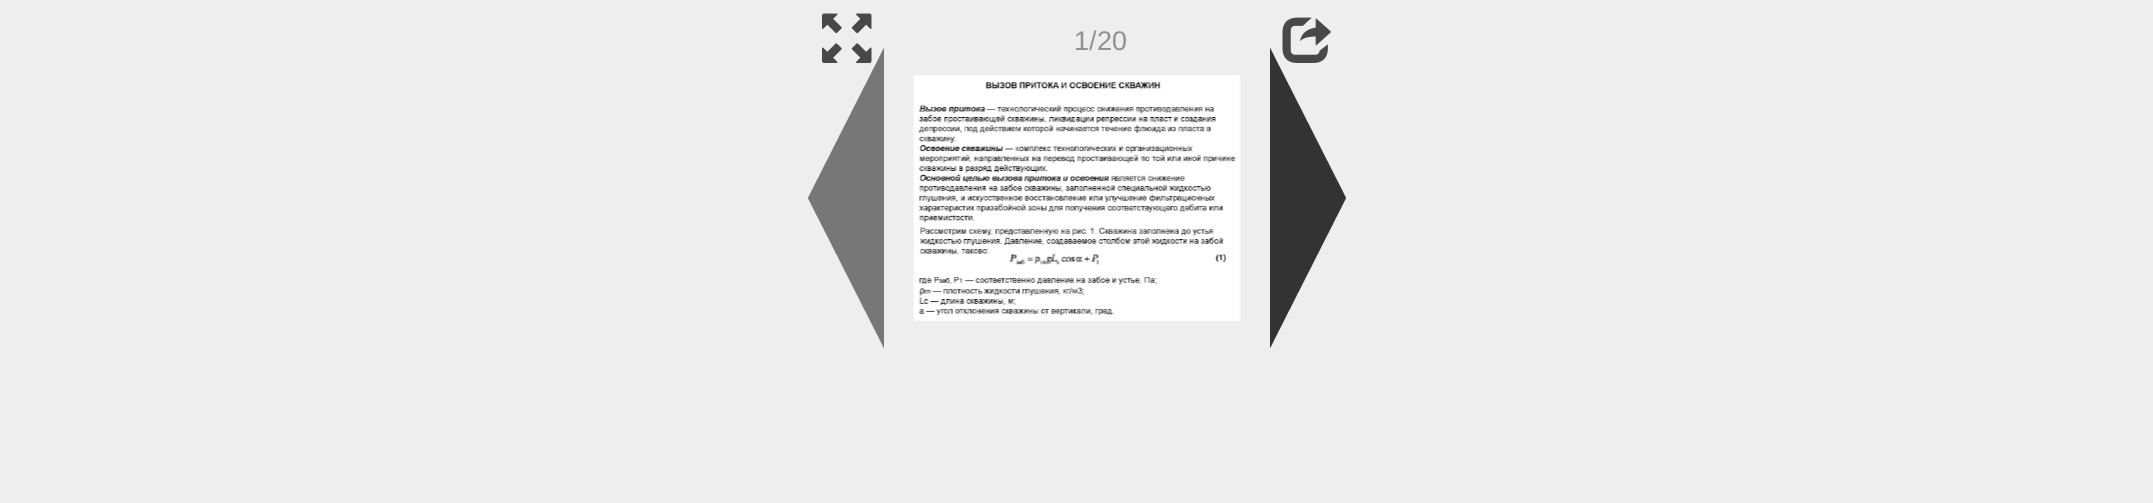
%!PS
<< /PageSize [2153 503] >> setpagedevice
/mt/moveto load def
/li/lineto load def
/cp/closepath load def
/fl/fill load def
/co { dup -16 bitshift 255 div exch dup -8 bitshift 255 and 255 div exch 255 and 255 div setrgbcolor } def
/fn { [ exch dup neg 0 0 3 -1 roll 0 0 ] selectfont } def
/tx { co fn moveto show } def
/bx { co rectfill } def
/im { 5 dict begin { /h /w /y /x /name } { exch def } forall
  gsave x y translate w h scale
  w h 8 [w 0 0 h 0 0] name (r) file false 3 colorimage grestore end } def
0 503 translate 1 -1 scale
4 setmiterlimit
0 0 2153 503 16#EEEEEE bx
(media/1.raw) 822 13 50 50 im
(media/2.raw) 1282 17 49 46 im
16#777777 co
884 48 mt 884 348 li 808 198 li cp fl
(media/3.raw) 913 75 328 246 im
16#333333 co
1270 348 mt 1270 48 li 1346 198 li cp fl
(1/20) 1074 50 /LiberationSans-Regular 27 16#919191 tx
showpage
